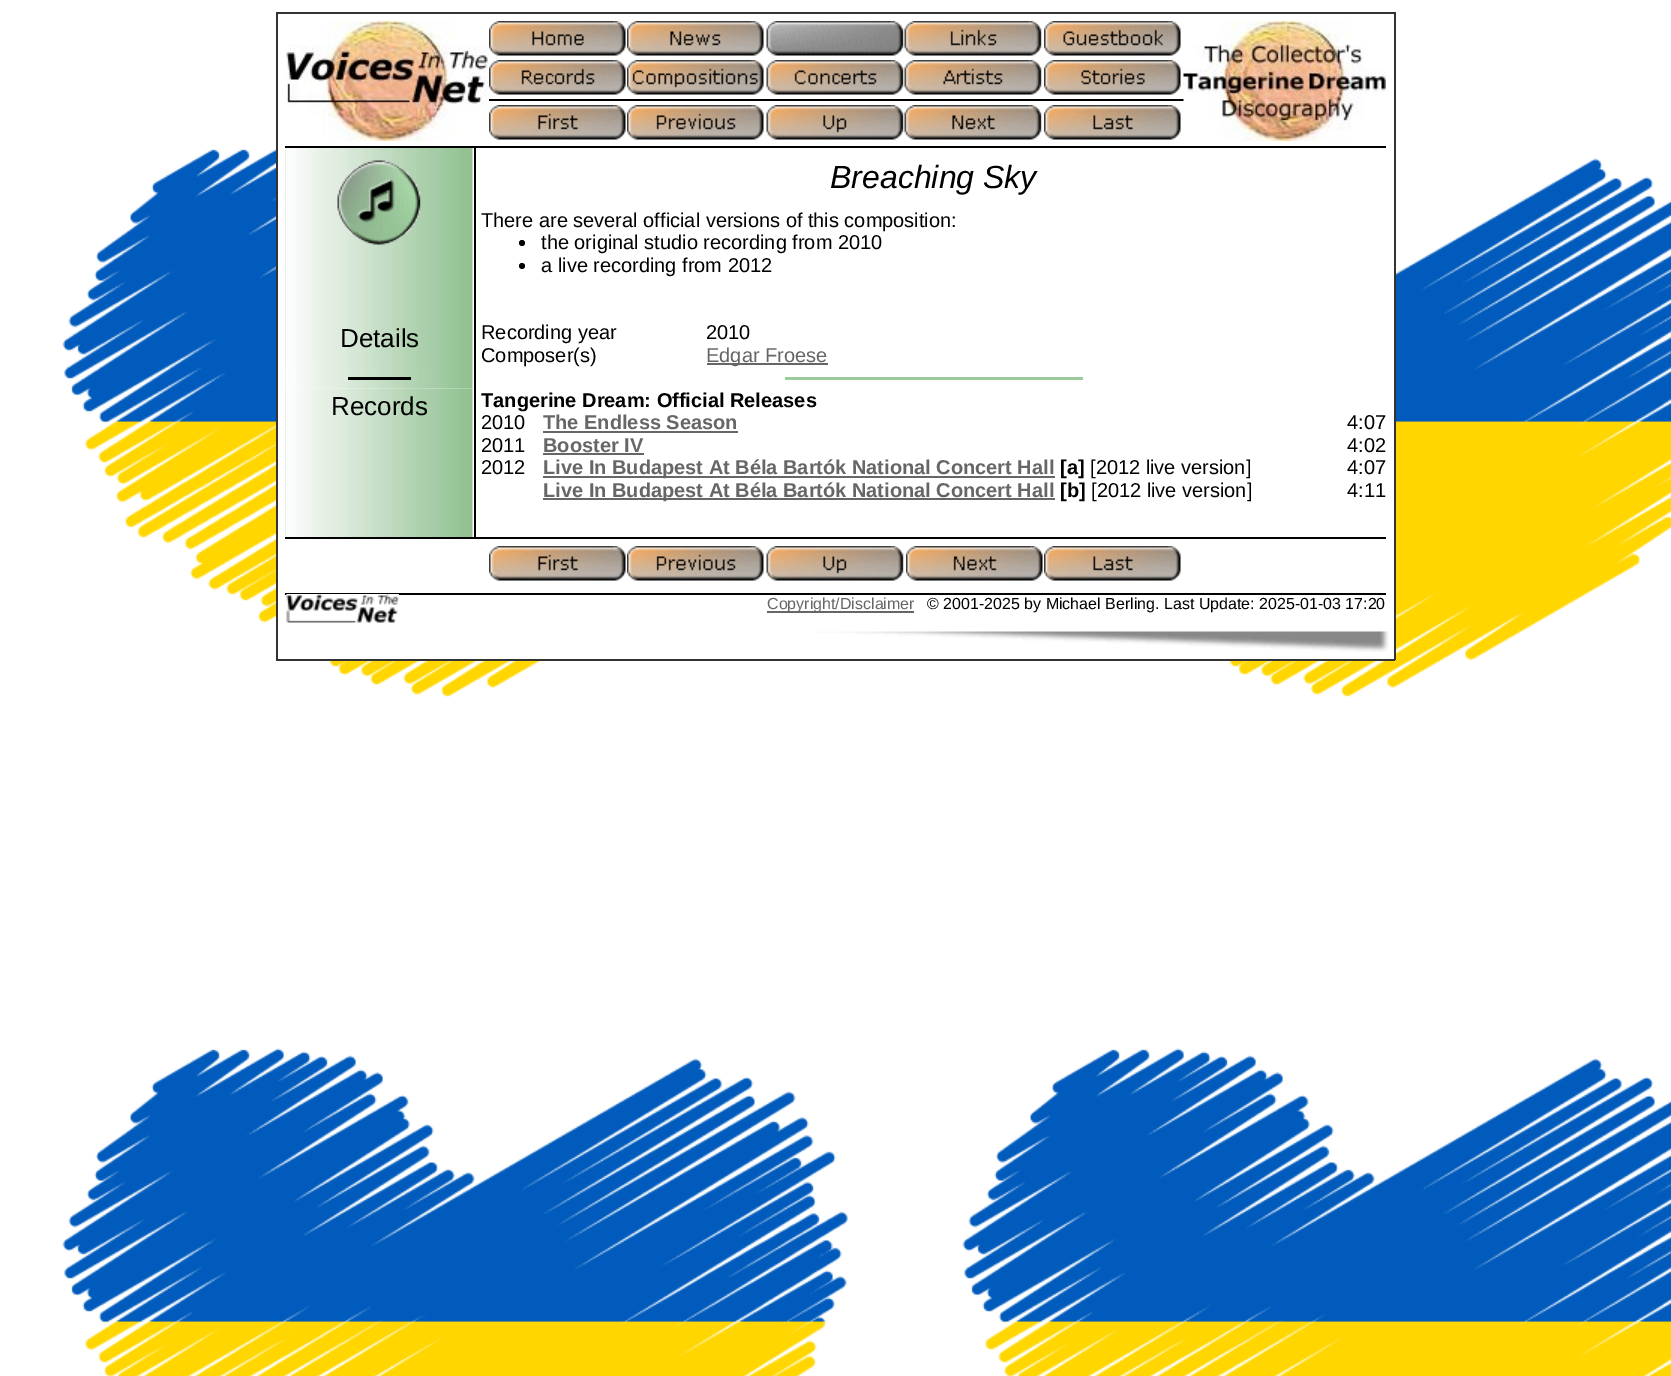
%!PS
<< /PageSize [1671 1376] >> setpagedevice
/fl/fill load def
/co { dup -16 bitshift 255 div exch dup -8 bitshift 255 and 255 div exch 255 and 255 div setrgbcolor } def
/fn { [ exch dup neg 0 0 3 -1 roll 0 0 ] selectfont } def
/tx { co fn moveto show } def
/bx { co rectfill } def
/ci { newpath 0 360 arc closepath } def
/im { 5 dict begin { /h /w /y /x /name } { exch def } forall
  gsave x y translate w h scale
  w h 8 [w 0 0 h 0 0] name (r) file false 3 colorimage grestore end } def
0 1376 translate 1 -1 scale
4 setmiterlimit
0 0 1671 1376 16#FFFFFF bx
(media/1.raw) 62 149 1609 1227 im
278 149 1116 510 16#FFFFFF bx
276 12 1119 2 16#333333 bx
1394 12 2 648 16#333333 bx
276 659 1119 2 16#333333 bx
276 12 2 648 16#333333 bx
(media/2.raw) 286 21 203 120 im
(media/3.raw) 489 21 137 35 im
(media/4.raw) 627 21 137 35 im
(media/5.raw) 766 21 138 35 im
(media/6.raw) 904 21 138 35 im
(media/7.raw) 1044 21 137 35 im
(media/8.raw) 489 60 137 35 im
(media/9.raw) 627 60 137 35 im
(media/10.raw) 766 60 138 35 im
(media/11.raw) 904 60 138 35 im
(media/12.raw) 1044 60 137 35 im
489 99 695 2 16#000000 bx
(media/13.raw) 489 105 137 35 im
(media/14.raw) 627 105 137 35 im
(media/15.raw) 766 105 138 35 im
(media/16.raw) 904 105 138 35 im
(media/17.raw) 1044 105 137 35 im
(media/18.raw) 1183 21 203 120 im
285 146 1101 2 16#000000 bx
(media/19.raw) 285 501 188 36 im
474 147 2 390 16#000000 bx
(media/20.raw) 285 148 188 173 im
(media/21.raw) 337 160 84 85 im
522 243 3 ci fl
522 266 3 ci fl
(media/22.raw) 285 321 188 45 im
707 363 121 2 16#666666 bx
(media/23.raw) 285 366 188 23 im
348 377 63 3 16#000000 bx
785 377 298 3 16#99CC99 bx
(media/24.raw) 285 388 188 113 im
543 431 195 2 16#666666 bx
543 453 101 2 16#666666 bx
543 476 512 2 16#666666 bx
543 498 512 2 16#666666 bx
285 537 1101 2 16#000000 bx
(media/13.raw) 489 546 137 35 im
(media/14.raw) 627 546 137 35 im
(media/15.raw) 766 546 138 35 im
(media/25.raw) 906 546 137 35 im
(media/17.raw) 1044 546 137 35 im
285 593 1101 2 16#000000 bx
(media/26.raw) 286 594 113 29 im
767 611 147 2 16#666666 bx
(media/27.raw) 817 631 572 21 im
(Breaching Sky) 830 188 /LiberationSans-Italic 32 16#000000 tx
(There are several official versions of this composition:) 481 227 /LiberationSans-Regular 20 16#000000 tx
(the original studio recording from 2010) 541 249 /LiberationSans-Regular 20 16#000000 tx
(a live recording from 2012) 541 272 /LiberationSans-Regular 20 16#000000 tx
(Details) 340 347 /LiberationSans-Regular 26 16#000000 tx
(Recording year) 481 339 /LiberationSans-Regular 20 16#000000 tx
(2010) 706 339 /LiberationSans-Regular 20 16#000000 tx
(Composer\(s\)) 481 362 /LiberationSans-Regular 20 16#000000 tx
(Edgar Froese) 706 362 /LiberationSans-Regular 20 16#666666 tx
(Records) 331 415 /LiberationSans-Regular 26 16#000000 tx
(Tangerine Dream: Official Releases) 481 407 /LiberationSans-Bold 20 16#000000 tx
(2010) 481 429 /LiberationSans-Regular 20 16#000000 tx
(The Endless Season) 543 429 /LiberationSans-Bold 20 16#666666 tx
(4:07) 1347 429 /LiberationSans-Regular 20 16#000000 tx
(2011) 481 452 /LiberationSans-Regular 20 16#000000 tx
(Booster IV) 543 452 /LiberationSans-Bold 20 16#666666 tx
(4:02) 1347 452 /LiberationSans-Regular 20 16#000000 tx
(2012) 481 474 /LiberationSans-Regular 20 16#000000 tx
(Live In Budapest At Béla Bartók National Concert Hall) 543 474 /LiberationSans-Bold 20 16#666666 tx
([a]) 1060 474 /LiberationSans-Bold 20 16#000000 tx
([2012 live version]) 1090 474 /LiberationSans-Regular 20 16#000000 tx
(4:07) 1347 474 /LiberationSans-Regular 20 16#000000 tx
(Live In Budapest At Béla Bartók National Concert Hall) 543 497 /LiberationSans-Bold 20 16#666666 tx
([b]) 1060 497 /LiberationSans-Bold 20 16#000000 tx
([2012 live version]) 1091 497 /LiberationSans-Regular 20 16#000000 tx
(4:11) 1347 497 /LiberationSans-Regular 20 16#000000 tx
(Copyright/Disclaimer) 767 609 /LiberationSans-Regular 16 16#666666 tx
(© 2001-2025 by Michael Berling. Last Update: 2025-01-03 17:20) 927 609 /LiberationSans-Regular 16 16#000000 tx
showpage
